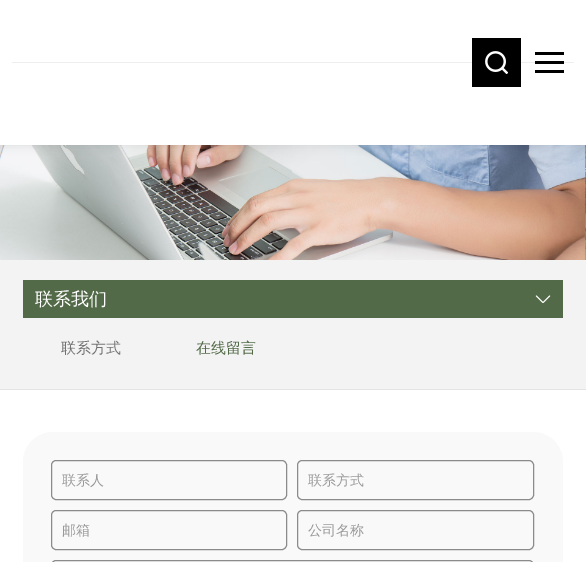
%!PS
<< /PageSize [586 562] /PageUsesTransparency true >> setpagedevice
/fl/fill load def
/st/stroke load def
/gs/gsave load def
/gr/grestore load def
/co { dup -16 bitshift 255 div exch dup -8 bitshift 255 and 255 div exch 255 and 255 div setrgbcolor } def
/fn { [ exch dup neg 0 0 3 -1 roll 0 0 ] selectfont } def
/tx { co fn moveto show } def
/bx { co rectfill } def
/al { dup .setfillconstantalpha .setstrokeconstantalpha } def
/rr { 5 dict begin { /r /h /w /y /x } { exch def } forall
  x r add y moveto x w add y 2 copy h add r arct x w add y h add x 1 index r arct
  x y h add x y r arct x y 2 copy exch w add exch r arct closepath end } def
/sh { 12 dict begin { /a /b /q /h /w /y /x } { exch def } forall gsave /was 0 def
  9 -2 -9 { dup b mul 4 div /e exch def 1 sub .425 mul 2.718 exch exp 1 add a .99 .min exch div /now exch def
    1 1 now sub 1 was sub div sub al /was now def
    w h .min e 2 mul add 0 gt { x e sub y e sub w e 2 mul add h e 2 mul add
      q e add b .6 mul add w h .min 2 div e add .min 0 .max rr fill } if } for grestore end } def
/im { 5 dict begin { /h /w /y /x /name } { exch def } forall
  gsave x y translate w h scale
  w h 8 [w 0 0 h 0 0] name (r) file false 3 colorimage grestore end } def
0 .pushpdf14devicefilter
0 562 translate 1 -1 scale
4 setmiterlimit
0 0 586 562 16#FFFFFF bx
(media/2.raw) 0 145 586 115 im
16#000000 co
0 0 586 145 0 5 .1 sh
0 0 586 145 16#FFFFFF bx
12 62 562 1 16#EEEEEE bx
472 38 49 49 16#000000 bx
(media/1.raw) 485 51 23 23 im
535 52 29 3 16#000000 bx
535 61 29 3 16#000000 bx
535 70 29 3 16#000000 bx
0 260 586 129 16#F3F3F3 bx
0 389 586 1 16#E4E4E4 bx
23 280 540 38 16#526A47 bx
(media/3.raw) 535 295 16 8 im
16#F9F9F9 co
23 432 540 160 30 rr fl
16#8B8B8B co
51.5 460.5 235 39 4.5 rr st
297.5 460.5 236 39 4.5 rr st
51.5 510.5 235 39 4.5 rr st
297.5 510.5 236 39 4.5 rr st
51.5 560.5 482 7 4.5 rr st
(联系我们) 35 305 /WenQuanYiZenHei-Medium 18 16#FFFFFF tx
(联系方式) 61 353 /WenQuanYiZenHei-Medium 15 16#727272 tx
(在线留言) 196 353 /WenQuanYiZenHei-Medium 15 16#526A47 tx
gs
62 472 214 18 rectclip
(联系人) 62 485 /WenQuanYiZenHei-Medium 14 16#999999 tx
gr
(联系方式) 308 485 /WenQuanYiZenHei-Medium 14 16#999999 tx
(邮箱) 62 535 /WenQuanYiZenHei-Medium 14 16#999999 tx
(公司名称) 308 535 /WenQuanYiZenHei-Medium 14 16#999999 tx
.poppdf14devicefilter showpage
